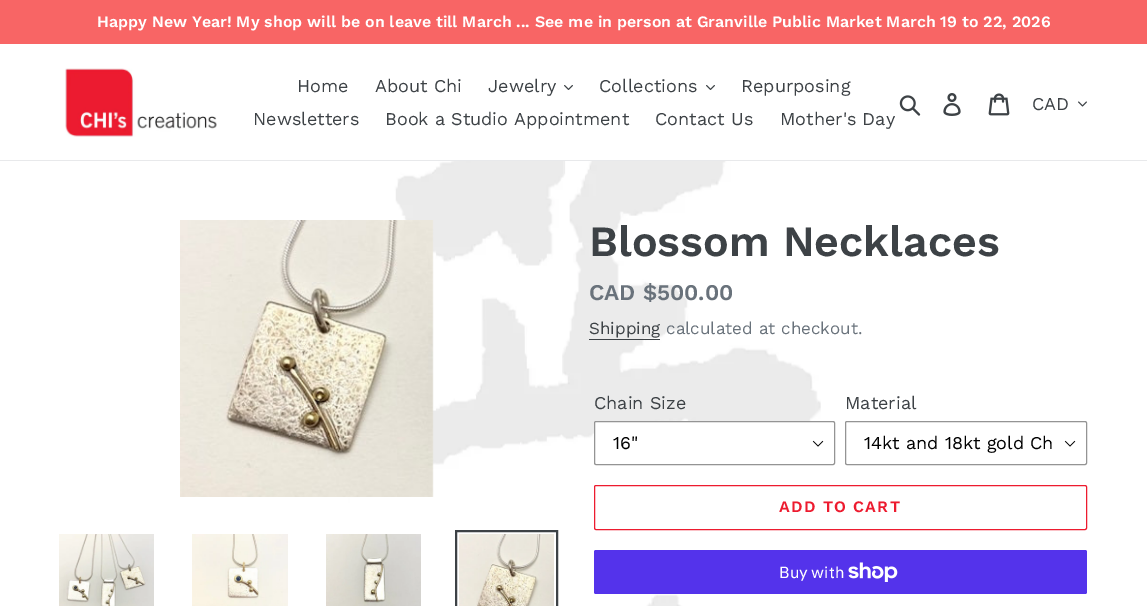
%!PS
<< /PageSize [1147 606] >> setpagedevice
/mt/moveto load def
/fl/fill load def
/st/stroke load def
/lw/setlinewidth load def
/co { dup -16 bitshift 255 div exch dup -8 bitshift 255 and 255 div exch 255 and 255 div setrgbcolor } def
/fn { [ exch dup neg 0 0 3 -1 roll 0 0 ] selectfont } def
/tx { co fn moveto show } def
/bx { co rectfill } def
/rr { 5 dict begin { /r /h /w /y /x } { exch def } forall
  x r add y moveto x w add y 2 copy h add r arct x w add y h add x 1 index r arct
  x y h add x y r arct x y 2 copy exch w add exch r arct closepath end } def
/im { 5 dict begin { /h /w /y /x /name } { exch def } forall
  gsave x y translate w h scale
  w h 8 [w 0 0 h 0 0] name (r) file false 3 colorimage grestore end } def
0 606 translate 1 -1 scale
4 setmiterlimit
0 0 1147 606 16#FFFFFF bx
(media/1.raw) 331 161 490 445 im
0 0 1147 44 16#F86565 bx
0 160 1147 1 16#E8E9EB bx
(media/2.raw) 65 68 152 69 im
(media/3.raw) 564 85 9 5 im
(media/3.raw) 706 85 9 5 im
(media/4.raw) 899 95 22 21 im
(media/5.raw) 943 93 18 23 im
(media/6.raw) 988 93 22 23 im
(media/7.raw) 1078 101 9 6 im
(media/8.raw) 180 220 254 277 im
(media/9.raw) 59 534 95 72 im
(media/10.raw) 192 534 96 72 im
(media/11.raw) 326 534 95 72 im
16#3D4246 co
2 lw
456 531 101 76 rectstroke
(media/12.raw) 459 534 95 72 im
589 339 71 1 16#3D4246 bx
16#FFFFFF co
594 421 241 44 2 rr fl
(media/13.raw) 812 440 12 7 im
16#949494 co
1 lw
594.5 421.5 240 43 1.5 rr st
(media/13.raw) 1064 440 12 7 im
845.5 421.5 241 43 1.5 rr st
16#ED1B2F co
594.5 485.5 492 44 1.5 rr st
16#5433EB co
594 550 493 44 2 rr fl
(media/14.raw) 848 562 50 20 im
(Happy New Year! My shop will be on leave till March ... See me in person at Granville Public Market March 19 to 22, 2026) 97 27 /WorkSans-SemiBold 16 16#FFFFFF tx
(Home) 297 92 /WorkSans-Regular 18 16#3D4246 tx
(About Chi) 375 92 /WorkSans-Regular 18 16#3D4246 tx
(Jewelry) 488 92 /WorkSans-Regular 18 16#3D4246 tx
(Collections) 599 92 /WorkSans-Regular 18 16#3D4246 tx
(Repurposing) 741 92 /WorkSans-Regular 18 16#3D4246 tx
(Newsletters) 253 125 /WorkSans-Regular 18 16#3D4246 tx
(Book a Studio Appointment) 385 125 /WorkSans-Regular 18 16#3D4246 tx
(Contact Us) 655 125 /WorkSans-Regular 18 16#3D4246 tx
(Mother's Day) 780 125 /WorkSans-Regular 18 16#3D4246 tx
(CAD) 1032 110 /WorkSans-Regular 18 16#3D4246 tx
(Blossom Necklaces) 589 256 /WorkSans-SemiBold 43 16#3D4246 tx
(CAD $500.00) 589 300 /WorkSans-SemiBold 22.5 16#69727B tx
(Shipping) 589 334 /WorkSans-Regular 17 16#3D4246 tx
(calculated at checkout.) 666 334 /WorkSans-Regular 17 16#69727B tx
(Chain Size) 594 409 /WorkSans-Regular 18 16#3D4246 tx
(16") 613 449 /WorkSans-Regular 18 16#000000 tx
(Material) 845 409 /WorkSans-Regular 18 16#3D4246 tx
(14kt and 18kt gold Ch) 864 449 /WorkSans-Regular 18 16#000000 tx
/WorkSans-SemiBold 16 fn
16#ED1B2F co
779 512 mt 1.25 0 (ADD TO CART) ashow
(Buy with) 779 578 /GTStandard-Regular 16 16#FFFFFF tx
showpage
